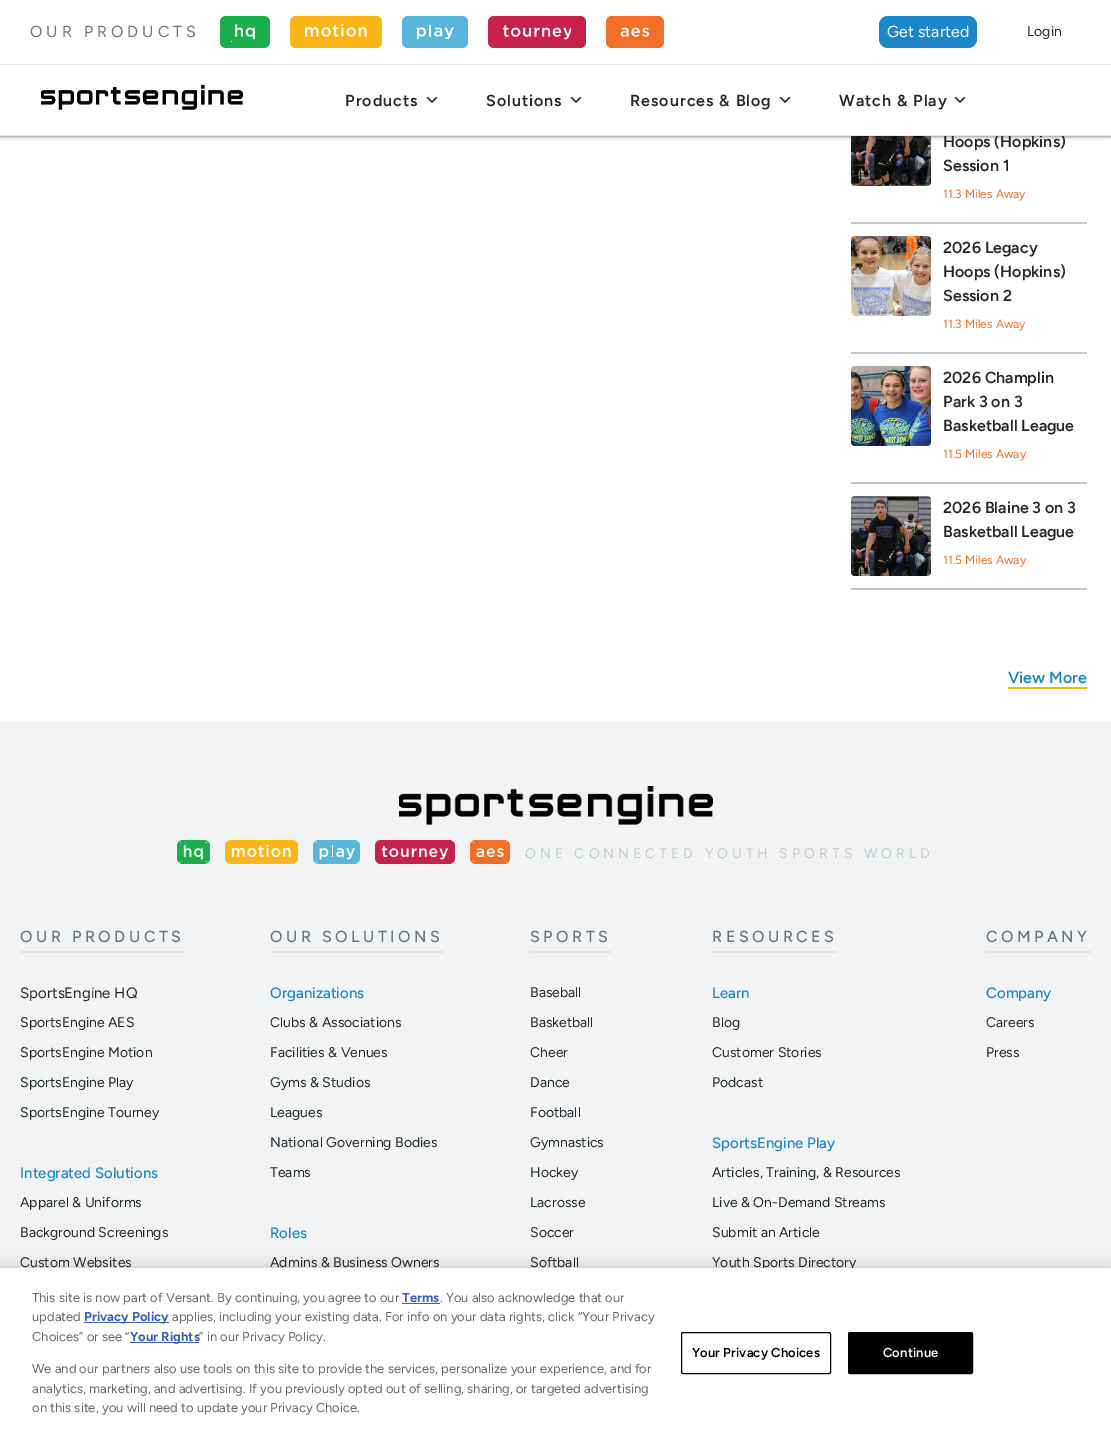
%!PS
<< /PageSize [1111 1441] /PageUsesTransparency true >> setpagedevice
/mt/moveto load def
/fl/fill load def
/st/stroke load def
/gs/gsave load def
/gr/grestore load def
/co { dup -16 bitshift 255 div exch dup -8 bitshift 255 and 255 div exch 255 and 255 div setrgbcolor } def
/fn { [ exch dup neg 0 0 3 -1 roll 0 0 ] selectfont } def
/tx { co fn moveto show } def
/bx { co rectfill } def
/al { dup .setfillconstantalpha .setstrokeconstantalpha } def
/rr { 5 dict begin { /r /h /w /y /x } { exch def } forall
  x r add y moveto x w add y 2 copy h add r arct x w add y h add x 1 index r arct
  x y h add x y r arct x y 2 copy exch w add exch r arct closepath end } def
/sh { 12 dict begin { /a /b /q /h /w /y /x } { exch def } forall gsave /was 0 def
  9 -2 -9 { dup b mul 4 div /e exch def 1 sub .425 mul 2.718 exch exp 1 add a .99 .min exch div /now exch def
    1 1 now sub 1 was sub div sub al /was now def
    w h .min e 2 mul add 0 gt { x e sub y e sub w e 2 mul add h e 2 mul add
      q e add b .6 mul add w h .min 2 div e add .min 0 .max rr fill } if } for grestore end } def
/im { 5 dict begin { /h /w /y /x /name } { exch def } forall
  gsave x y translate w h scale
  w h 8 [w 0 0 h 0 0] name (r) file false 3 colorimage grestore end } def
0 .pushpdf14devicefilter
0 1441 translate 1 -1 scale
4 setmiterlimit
0 0 1111 1441 16#FFFFFF bx
(media/8.raw) 851 136 80 50 im
16#000000 co
0 65 1111 72 0 1.5 .3 sh
16#23282B co
0 65 1111 72 0 1.5 .2 sh
0 62 1111 2 16#FFFFFF bx
0 64 1111 1 16#EBEBEB bx
16#1AAF4B co
220 16 50 32 6 rr fl
(media/1.raw) 231 22 27 20 im
16#FAB516 co
290 16 92 32 6 rr fl
(media/2.raw) 305 24 62 13 im
16#58B6DB co
402 16 66 32 6 rr fl
(media/3.raw) 414 25 40 17 im
16#C7224C co
488 16 98 32 6 rr fl
(media/4.raw) 503 25 68 15 im
16#F16F26 co
606 16 58 32 6 rr fl
(media/5.raw) 618 27 34 15 im
16#1B87C8 co
879 16 98 32 9 rr fl
851 222 236 2 16#C3CACE bx
(media/9.raw) 851 236 80 80 im
851 352 236 2 16#C3CACE bx
(media/10.raw) 851 366 80 80 im
851 482 236 2 16#C3CACE bx
(media/11.raw) 851 496 80 80 im
851 588 236 2 16#C3CACE bx
1008 687 79 2 16#FAB516 bx
0 722 1111 546 16#F2F3F4 bx
(media/12.raw) 399 786 314 39 im
16#1AAF4B co
177 840 33 24 6 rr fl
(media/13.raw) 180 842 27 20 im
16#FAB516 co
225 840 73 24 6 rr fl
(media/14.raw) 231 844 60 14 im
16#58B6DB co
313 840 47 24 6 rr fl
(media/15.raw) 316 842 41 20 im
16#C7224C co
375 840 80 24 6 rr fl
(media/16.raw) 381 846 67 14 im
16#F16F26 co
470 840 40 24 6 rr fl
(media/17.raw) 473 842 34 20 im
20 951 164 2 16#E4E4E4 bx
270 951 174 2 16#E4E4E4 bx
530 951 81 2 16#E4E4E4 bx
712 951 125 2 16#E4E4E4 bx
986 951 105 2 16#E4E4E4 bx
16#000000 co
0 1268 1111 173 0 9 .2 sh
/Figtree-Regular 16 fn
16#68767F co
30 37 mt 4 0 (OUR PRODUCTS) ashow
(Get started) 887 37 /Figtree-Regular 16 16#FFFFFF tx
(Login) 1027 36 /Figtree-Regular 14 16#23282B tx
(Hoops \(Hopkins\)) 943 147 /Figtree-SemiBold 16 16#23282B tx
0 65 1111 70 16#FFFFFF bx
(media/7.raw) 954 96 12 7 im
16#23282B co
839 106 mt 1 0 (Watch & Play) ashow
(media/7.raw) 779 96 12 7 im
630 106 mt 1 0 (Resources & Blog) ashow
(media/7.raw) 570 96 12 7 im
486 106 mt 1 0 (Solutions) ashow
(media/7.raw) 426 96 12 7 im
345 106 mt 1 0 (Products) ashow
(media/6.raw) 41 84 202 26 im
0 135 1111 1 16#EBEBEB bx
(Session 1) 943 171 /Figtree-SemiBold 16 16#23282B tx
(11.3 Miles Away) 943 198 /Figtree-Regular 12 16#F16F26 tx
(2026 Legacy) 943 253 /Figtree-SemiBold 16 16#23282B tx
(Hoops \(Hopkins\)) 943 277 /Figtree-SemiBold 16 16#23282B tx
(Session 2) 943 301 /Figtree-SemiBold 16 16#23282B tx
(11.3 Miles Away) 943 328 /Figtree-Regular 12 16#F16F26 tx
(2026 Champlin) 943 383 /Figtree-SemiBold 16 16#23282B tx
(Park 3 on 3) 943 407 /Figtree-SemiBold 16 16#23282B tx
(Basketball League) 943 431 /Figtree-SemiBold 16 16#23282B tx
(11.5 Miles Away) 943 458 /Figtree-Regular 12 16#F16F26 tx
(2026 Blaine 3 on 3) 943 513 /Figtree-SemiBold 16 16#23282B tx
(Basketball League) 943 537 /Figtree-SemiBold 16 16#23282B tx
(11.5 Miles Away) 943 564 /Figtree-Regular 12 16#F16F26 tx
(View More) 1008 683 /Figtree-SemiBold 16 16#1B87C8 tx
/Figtree-Regular 14 fn
16#C3CACE co
525 858 mt 4 0 (ONE CONNECTED YOUTH SPORTS WORLD) ashow
/Figtree-Medium 16 fn
16#68767F co
20 942 mt 3.5 0 (OUR PRODUCTS) ashow
(SportsEngine HQ) 20 998 /Figtree-Regular 15 16#23282B tx
(SportsEngine AES) 20 1027 /Figtree-Regular 14 16#23282B tx
(SportsEngine Motion) 20 1057 /Figtree-Regular 14 16#23282B tx
(SportsEngine Play) 20 1087 /Figtree-Regular 14 16#23282B tx
(SportsEngine Tourney) 20 1117 /Figtree-Regular 14 16#23282B tx
(Integrated Solutions) 20 1178 /Figtree-Medium 15 16#1B87C8 tx
(Apparel & Uniforms) 20 1207 /Figtree-Regular 14 16#23282B tx
(Background Screenings) 20 1237 /Figtree-Regular 14 16#23282B tx
(Custom Websites) 20 1267 /Figtree-Regular 14 16#23282B tx
/Figtree-Medium 16 fn
16#68767F co
270 942 mt 3.5 0 (OUR SOLUTIONS) ashow
(Organizations) 270 998 /Figtree-Medium 15 16#1B87C8 tx
(Clubs & Associations) 270 1027 /Figtree-Regular 14 16#23282B tx
(Facilities & Venues) 270 1057 /Figtree-Regular 14 16#23282B tx
(Gyms & Studios) 270 1087 /Figtree-Regular 14 16#23282B tx
(Leagues) 270 1117 /Figtree-Regular 14 16#23282B tx
(National Governing Bodies) 270 1147 /Figtree-Regular 14 16#23282B tx
(Teams) 270 1177 /Figtree-Regular 14 16#23282B tx
(Roles) 270 1238 /Figtree-Medium 15 16#1B87C8 tx
(Admins & Business Owners) 270 1267 /Figtree-Regular 14 16#23282B tx
/Figtree-Medium 16 fn
16#68767F co
530 942 mt 3.5 0 (SPORTS) ashow
(Baseball) 530 997 /Figtree-Regular 14 16#23282B tx
(Basketball) 530 1027 /Figtree-Regular 14 16#23282B tx
(Cheer) 530 1057 /Figtree-Regular 14 16#23282B tx
(Dance) 530 1087 /Figtree-Regular 14 16#23282B tx
(Football) 530 1117 /Figtree-Regular 14 16#23282B tx
(Gymnastics) 530 1147 /Figtree-Regular 14 16#23282B tx
(Hockey) 530 1177 /Figtree-Regular 14 16#23282B tx
(Lacrosse) 530 1207 /Figtree-Regular 14 16#23282B tx
(Soccer) 530 1237 /Figtree-Regular 14 16#23282B tx
(Softball) 530 1267 /Figtree-Regular 14 16#23282B tx
/Figtree-Medium 16 fn
16#68767F co
712 942 mt 3.5 0 (RESOURCES) ashow
(Learn) 712 998 /Figtree-Medium 15 16#1B87C8 tx
(Blog) 712 1027 /Figtree-Regular 14 16#23282B tx
(Customer Stories) 712 1057 /Figtree-Regular 14 16#23282B tx
(Podcast) 712 1087 /Figtree-Regular 14 16#23282B tx
(SportsEngine Play) 712 1148 /Figtree-Medium 15 16#1B87C8 tx
(Articles, Training, & Resources) 712 1177 /Figtree-Regular 14 16#23282B tx
(Live & On-Demand Streams) 712 1207 /Figtree-Regular 14 16#23282B tx
(Submit an Article) 712 1237 /Figtree-Regular 14 16#23282B tx
(Youth Sports Directory) 712 1267 /Figtree-Regular 14 16#23282B tx
/Figtree-Medium 16 fn
16#68767F co
986 942 mt 3.5 0 (COMPANY) ashow
(Company) 986 998 /Figtree-Medium 15 16#1B87C8 tx
(Careers) 986 1027 /Figtree-Regular 14 16#23282B tx
(Press) 986 1057 /Figtree-Regular 14 16#23282B tx
0 1268 1111 173 16#FFFFFF bx
(This site is now part of Versant. By continuing, you agree to our) 32 1302 /Figtree-Regular 13 16#696969 tx
(Terms) 402 1302 /Figtree-Bold 13 16#3860BE tx
402 1303 38 1 16#3860BE bx
(. You also acknowledge that our) 440 1302 /Figtree-Regular 13 16#696969 tx
(updated) 32 1321 /Figtree-Regular 13 16#696969 tx
84 1322 85 1 16#3860BE bx
(Privacy Policy) 84 1321 /Figtree-Bold 13 16#3860BE tx
(applies, including your existing data. For info on your data rights, click “Your Privacy) 172 1321 /Figtree-Regular 13 16#696969 tx
(Choices” or see “) 32 1341 /Figtree-Regular 13 16#696969 tx
130 1342 69 1 16#3860BE bx
(Your Rights) 130 1341 /Figtree-Bold 13 16#3860BE tx
(” in our Privacy Policy.) 199 1341 /Figtree-Regular 13 16#696969 tx
(We and our partners also use tools on this site to provide the services, personalize your experience, and for) 32 1373 /Figtree-Regular 13 16#696969 tx
(analytics, marketing, and advertising. If you previously opted out of selling, sharing, or targeted advertising) 32 1393 /Figtree-Regular 13 16#696969 tx
(on this site, you will need to update your Privacy Choice.) 32 1412 /Figtree-Regular 13 16#696969 tx
16#000000 co
681.5 1332.5 149 41 1.5 rr st
/Figtree-SemiBold 13 fn
692 1357 mt .1 0 (Your Privacy Choices) ashow
848.5 1332.5 124 41 1.5 rr gs fl gr
st
16#FFFFFF co
883 1357 mt .1 0 (Continue) ashow
.poppdf14devicefilter showpage
